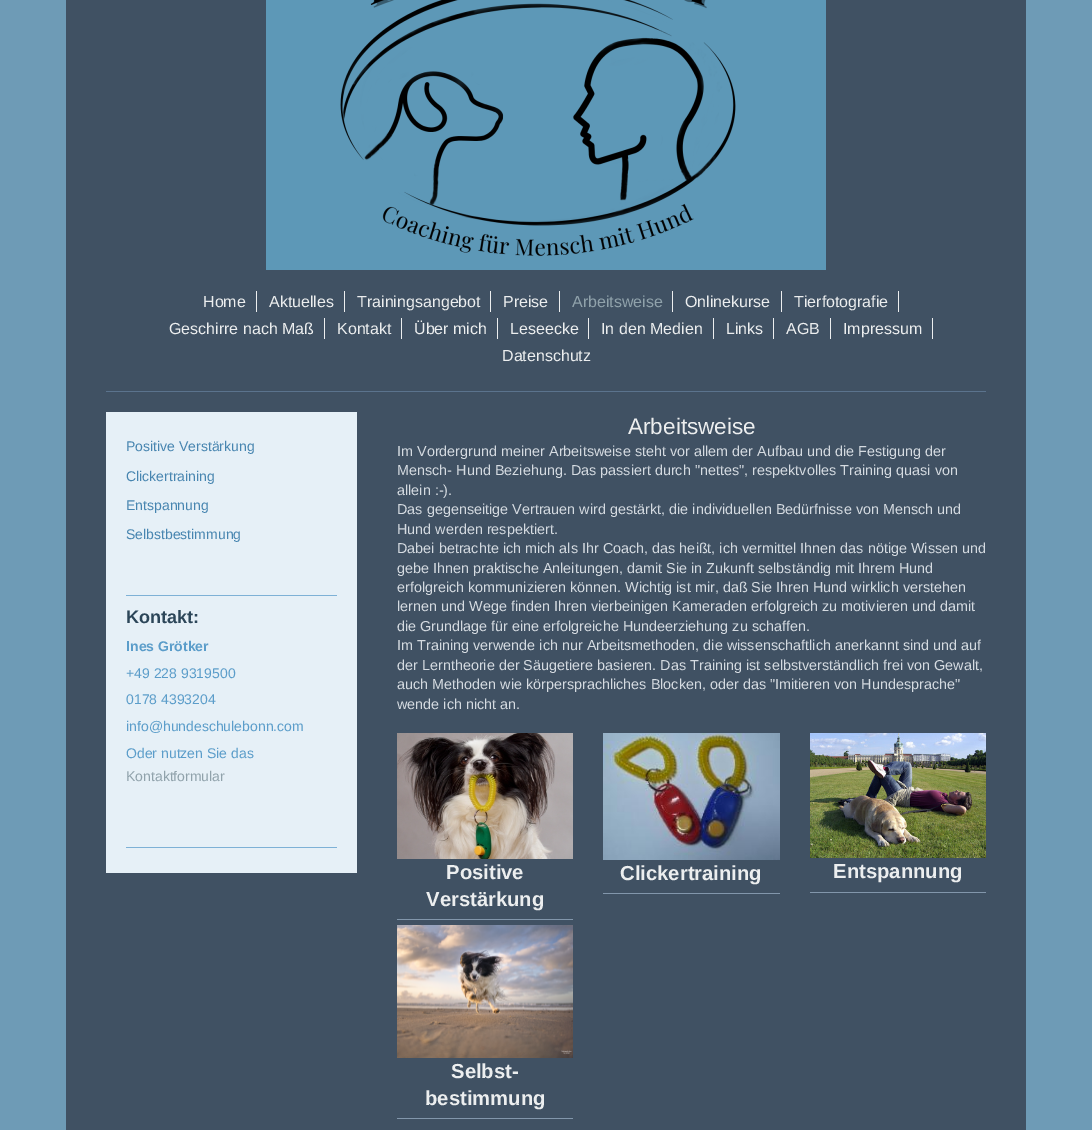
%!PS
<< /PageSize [1092 1130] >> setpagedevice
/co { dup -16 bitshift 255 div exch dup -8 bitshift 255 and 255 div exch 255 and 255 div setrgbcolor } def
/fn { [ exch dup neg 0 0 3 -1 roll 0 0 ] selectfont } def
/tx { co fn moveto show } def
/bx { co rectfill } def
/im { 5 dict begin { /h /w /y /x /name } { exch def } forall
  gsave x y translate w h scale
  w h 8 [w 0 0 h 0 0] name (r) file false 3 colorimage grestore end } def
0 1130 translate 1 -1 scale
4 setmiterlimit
0 0 1092 1130 16#6E9BB6 bx
66 0 960 1130 16#405163 bx
(media/1.raw) 266 0 560 270 im
106 391 880 1 16#5B738D bx
256 291 1 21 16#ECEEEF bx
344 291 1 21 16#ECEEEF bx
490 291 1 21 16#ECEEEF bx
559 291 1 21 16#ECEEEF bx
672 291 1 21 16#ECEEEF bx
781 291 1 21 16#ECEEEF bx
898 291 1 21 16#ECEEEF bx
324 318 1 21 16#ECEEEF bx
401 318 1 21 16#ECEEEF bx
497 318 1 21 16#ECEEEF bx
588 318 1 21 16#ECEEEF bx
713 318 1 21 16#ECEEEF bx
773 318 1 21 16#ECEEEF bx
830 318 1 21 16#ECEEEF bx
932 318 1 21 16#ECEEEF bx
106 412 251 461 16#E6F0F7 bx
126 595 211 1 16#7EB1D6 bx
126 847 211 1 16#7EB1D6 bx
(media/2.raw) 397 733 176 126 im
397 919 176 1 16#8296AB bx
(media/3.raw) 603 733 177 127 im
603 893 177 1 16#8296AB bx
(media/4.raw) 810 733 176 125 im
810 892 176 1 16#8296AB bx
(media/5.raw) 397 925 176 133 im
397 1118 176 1 16#8296AB bx
(Home) 203 307 /LiberationSans-Regular 16 16#ECEEEF tx
(Aktuelles) 269 307 /LiberationSans-Regular 16 16#ECEEEF tx
(Trainingsangebot) 357 307 /LiberationSans-Regular 16 16#ECEEEF tx
(Preise) 503 307 /LiberationSans-Regular 16 16#ECEEEF tx
(Arbeitsweise) 572 307 /LiberationSans-Regular 16 16#90A2AB tx
(Onlinekurse) 685 307 /LiberationSans-Regular 16 16#ECEEEF tx
(Tierfotografie) 794 307 /LiberationSans-Regular 16 16#ECEEEF tx
(Geschirre nach Maß) 169 334 /LiberationSans-Regular 16 16#ECEEEF tx
(Kontakt) 337 334 /LiberationSans-Regular 16 16#ECEEEF tx
(Über mich) 414 334 /LiberationSans-Regular 16 16#ECEEEF tx
(Leseecke) 510 334 /LiberationSans-Regular 16 16#ECEEEF tx
(In den Medien) 601 334 /LiberationSans-Regular 16 16#ECEEEF tx
(Links) 726 334 /LiberationSans-Regular 16 16#ECEEEF tx
(AGB) 786 334 /LiberationSans-Regular 16 16#ECEEEF tx
(Impressum) 843 334 /LiberationSans-Regular 16 16#ECEEEF tx
(Datenschutz) 502 361 /LiberationSans-Regular 16 16#ECEEEF tx
(Positive Verstärkung) 126 451 /LiberationSans-Regular 14 16#4785B0 tx
(Clickertraining) 126 481 /LiberationSans-Regular 14 16#4785B0 tx
(Entspannung) 126 510 /LiberationSans-Regular 14 16#4785B0 tx
(Selbstbestimmung) 126 539 /LiberationSans-Regular 14 16#4785B0 tx
(Kontakt:) 126 623 /LiberationSans-Bold 18 16#2C4659 tx
(I) 126 651 /LiberationSans-Bold 14.4 16#5B9DCA tx
(nes Grötker) 130 651 /LiberationSans-Bold 14 16#5B9DCA tx
(+49 228 9319500) 126 678 /LiberationSans-Regular 14 16#5B9DCA tx
(0178 4393204) 126 704 /LiberationSans-Regular 14 16#5B9DCA tx
(info@hundeschulebonn.com) 126 731 /LiberationSans-Regular 14 16#5B9DCA tx
(Oder nutzen Sie das) 126 758 /LiberationSans-Regular 14 16#5B9DCA tx
(Kontaktformular) 126 781 /LiberationSans-Regular 14 16#90A2AB tx
(Arbeitsweise) 628 434 /LiberationSans-Regular 22.5 16#ECEEEF tx
(Im Vordergrund meiner Arbeitsweise steht vor allem der Aufbau und die Festigung der) 397 456 /LiberationSans-Regular 14.4 16#D5DBE1 tx
(Mensch- Hund Beziehung. Das passiert durch "nettes", respektvolles Training quasi von) 397 475 /LiberationSans-Regular 14.4 16#D5DBE1 tx
(allein :-\).) 397 495 /LiberationSans-Regular 14.4 16#D5DBE1 tx
(Das gegenseitige Vertrauen wird gestärkt, die individuellen Bedürfnisse von Mensch und) 397 514 /LiberationSans-Regular 14.4 16#D5DBE1 tx
(Hund werden respektiert.) 397 534 /LiberationSans-Regular 14.4 16#D5DBE1 tx
(Dabei betrachte ich mich als Ihr Coach, das heißt, ich vermittel Ihnen das nötige Wissen und) 397 553 /LiberationSans-Regular 14.4 16#D5DBE1 tx
(gebe Ihnen praktische Anleitungen, damit Sie in Zukunft selbständig mit Ihrem Hund) 397 573 /LiberationSans-Regular 14.4 16#D5DBE1 tx
(erfolgreich kommunizieren können. Wichtig ist mir, daß Sie Ihren Hund wirklich verstehen) 397 592 /LiberationSans-Regular 14.4 16#D5DBE1 tx
(lernen und Wege finden Ihren vierbeinigen Kameraden erfolgreich zu motivieren und damit) 397 611 /LiberationSans-Regular 14.4 16#D5DBE1 tx
(die Grundlage für eine erfolgreiche Hundeerziehung zu schaffen.) 397 631 /LiberationSans-Regular 14.4 16#D5DBE1 tx
(Im Training verwende ich nur Arbeitsmethoden, die wissenschaftlich anerkannt sind und auf) 397 650 /LiberationSans-Regular 14.4 16#D5DBE1 tx
(der Lerntheorie der Säugetiere basieren. Das Training ist selbstverständlich frei von Gewalt,) 397 670 /LiberationSans-Regular 14.4 16#D5DBE1 tx
(auch Methoden wie körpersprachliches Blocken, oder das "Imitieren von Hundesprache") 397 689 /LiberationSans-Regular 14.4 16#D5DBE1 tx
(wende ich nicht an.) 397 709 /LiberationSans-Regular 14.4 16#D5DBE1 tx
(Positive) 446 879 /LiberationSans-Bold 20.25 16#ECEEEF tx
(Verstärkung) 426 906 /LiberationSans-Bold 20.25 16#ECEEEF tx
(Clickertraining) 620 880 /LiberationSans-Bold 20.25 16#ECEEEF tx
(Entspannung) 833 878 /LiberationSans-Bold 20.25 16#ECEEEF tx
(Selbst-) 451 1078 /LiberationSans-Bold 20.25 16#ECEEEF tx
(bestimmung) 425 1105 /LiberationSans-Bold 20.25 16#ECEEEF tx
showpage
